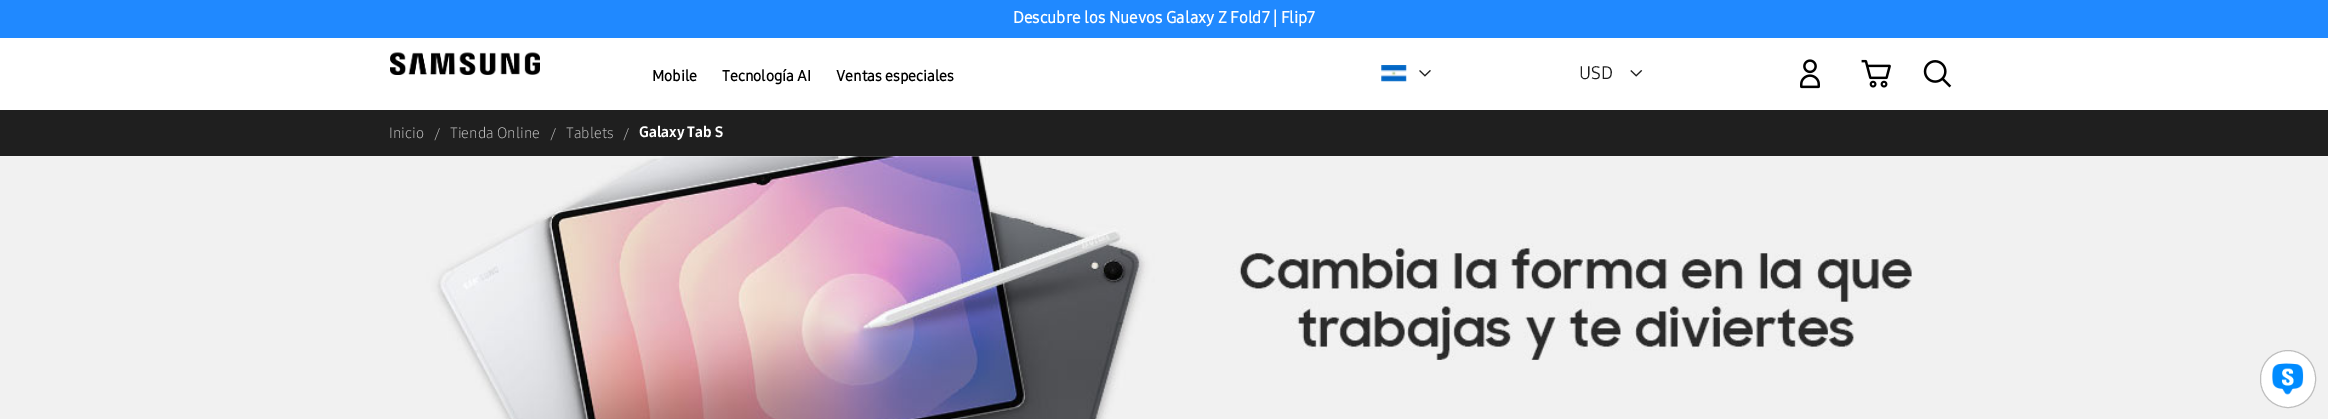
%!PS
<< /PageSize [2328 419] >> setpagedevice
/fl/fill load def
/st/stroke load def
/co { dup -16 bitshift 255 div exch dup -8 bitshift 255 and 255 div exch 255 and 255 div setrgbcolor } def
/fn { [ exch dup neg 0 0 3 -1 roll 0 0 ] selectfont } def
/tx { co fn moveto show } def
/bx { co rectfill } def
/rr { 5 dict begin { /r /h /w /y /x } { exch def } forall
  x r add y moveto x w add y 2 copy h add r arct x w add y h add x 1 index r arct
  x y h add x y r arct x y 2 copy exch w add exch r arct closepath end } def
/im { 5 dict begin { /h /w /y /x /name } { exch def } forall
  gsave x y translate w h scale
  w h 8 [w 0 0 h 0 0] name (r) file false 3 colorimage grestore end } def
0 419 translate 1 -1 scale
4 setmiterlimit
0 0 2328 419 16#FFFFFF bx
0 0 2328 38 16#2089FF bx
(media/1.raw) 390 52 150 23 im
(media/2.raw) 1381 65 26 17 im
(media/3.raw) 1419 70 12 7 im
(media/4.raw) 1630 70 13 7 im
(media/5.raw) 1800 59 20 30 im
(media/6.raw) 1861 59 30 29 im
(media/7.raw) 1923 60 29 28 im
0 110 2328 46 16#1F1F1F bx
(media/8.raw) 0 156 2328 263 im
16#FFFFFF co
2260 350 56 58 28 rr fl
(media/9.raw) 2272 363 32 32 im
16#BEBEBE co
2260.5 350.5 55 57 27.5 rr st
(Descubre los Nuevos Galaxy Z Fold7 | Flip7) 1013 23 /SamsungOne-Bold 16.25 16#FFFFFF tx
(Mobile) 652 81 /SamsungOne-Bold 15 16#000000 tx
(Tecnología AI) 722 81 /SamsungOne-Bold 15 16#000000 tx
(Ventas especiales) 836 81 /SamsungOne-Bold 15 16#000000 tx
(USD) 1579 79 /SamsungOne-Regular 18 16#1F1F1F tx
(Inicio) 389 138 /SamsungOne-Light 15 16#BCBCBC tx
(/) 434 139 /SamsungOne-Light 15 16#BCBCBC tx
(Tienda Online) 450 138 /SamsungOne-Light 15 16#BCBCBC tx
(/) 550 139 /SamsungOne-Light 15 16#BCBCBC tx
(Tablets) 566 138 /SamsungOne-Light 15 16#BCBCBC tx
(/) 623 139 /SamsungOne-Light 15 16#BCBCBC tx
(Galaxy Tab S) 639 137 /SamsungOne-ExtraBold 15 16#FFFFFF tx
showpage
